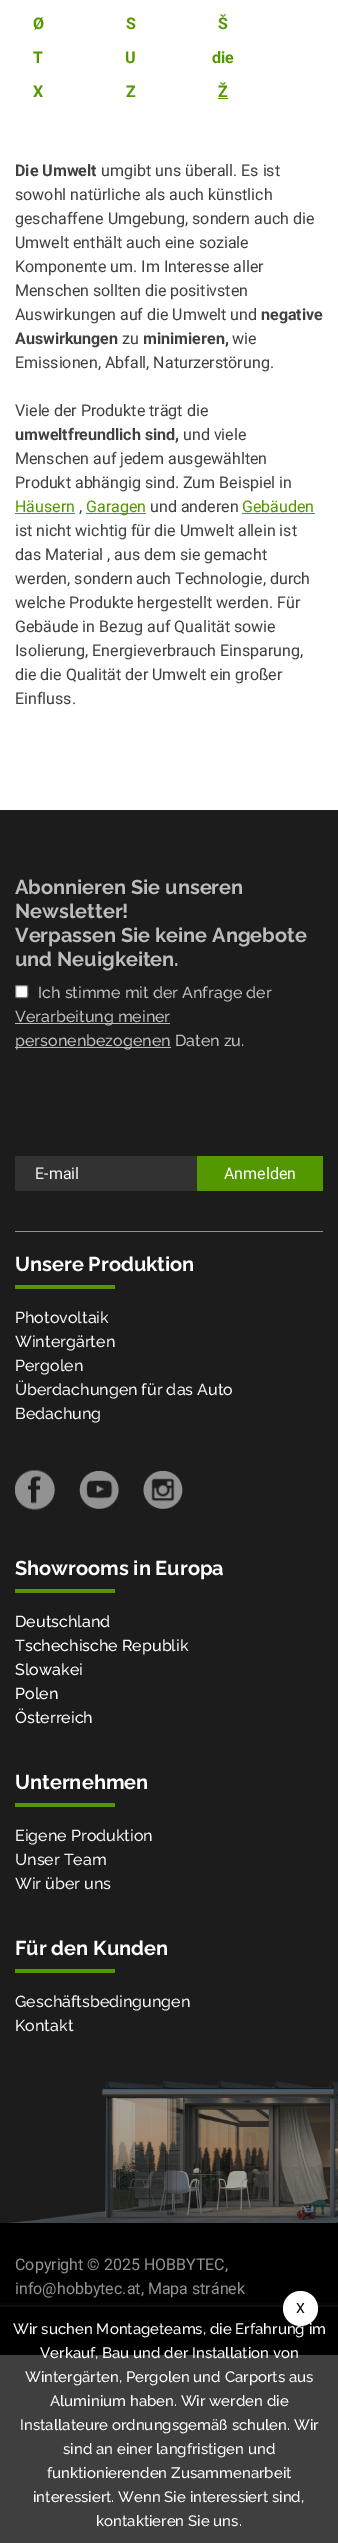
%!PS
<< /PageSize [338 2543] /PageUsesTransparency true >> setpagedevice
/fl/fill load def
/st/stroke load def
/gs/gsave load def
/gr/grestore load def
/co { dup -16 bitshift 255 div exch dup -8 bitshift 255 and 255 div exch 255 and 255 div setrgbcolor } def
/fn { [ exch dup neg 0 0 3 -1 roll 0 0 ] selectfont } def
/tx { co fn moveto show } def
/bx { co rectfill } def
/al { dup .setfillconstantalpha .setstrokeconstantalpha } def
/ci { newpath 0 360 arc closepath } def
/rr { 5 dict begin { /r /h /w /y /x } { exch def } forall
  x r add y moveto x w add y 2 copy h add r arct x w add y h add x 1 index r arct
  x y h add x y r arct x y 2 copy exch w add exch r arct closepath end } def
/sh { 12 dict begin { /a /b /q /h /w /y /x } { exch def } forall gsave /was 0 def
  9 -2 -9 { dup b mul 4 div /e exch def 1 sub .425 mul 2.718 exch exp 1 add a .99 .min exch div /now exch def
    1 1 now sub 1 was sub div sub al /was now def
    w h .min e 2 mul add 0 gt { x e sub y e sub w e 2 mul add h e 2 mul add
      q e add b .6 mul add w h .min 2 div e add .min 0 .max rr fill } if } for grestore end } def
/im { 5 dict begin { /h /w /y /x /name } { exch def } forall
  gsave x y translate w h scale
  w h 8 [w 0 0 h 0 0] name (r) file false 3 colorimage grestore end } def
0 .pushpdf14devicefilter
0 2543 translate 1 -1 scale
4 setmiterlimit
0 0 338 2543 16#FAFAFA bx
0 0 338 810 16#FFFFFF bx
218 98 10 1 16#539701 bx
15 513 60 1 16#539701 bx
86 513 60 1 16#539701 bx
242 513 73 1 16#539701 bx
0 810 338 1413 16#1C1C1C bx
16#FFFFFF co
15.5 985.5 12 12 1.5 rr gs fl gr
16#767676 co
st
15 1023 155 1 16#BCBCBC bx
15 1047 156 1 16#BCBCBC bx
16#323232 co
15 1156 182 35 2 rr fl
197 1156 126 35 16#539701 bx
15 1231 308 1 16#929292 bx
15 1285 100 4 16#539701 bx
(media/1.raw) 15 1470 40 40 im
(media/2.raw) 79 1471 40 38 im
(media/3.raw) 143 1471 40 38 im
15 1589 100 4 16#539701 bx
15 1803 100 4 16#539701 bx
15 1969 100 4 16#539701 bx
(media/4.raw) 8 2081 330 142 im
0 2223 338 132 16#000000 bx
gs
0 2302 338 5 rectclip
16#282B2D co
0 2307 338 236 0 2.5 1 sh
gr
0.75 al
0 2355 338 188 16#000000 bx
1 al
16#FFFFFF co
300.5 2308.5 17.5 ci fl
(Ø) 33 29 /Roboto-Bold 16 16#539701 tx
(S) 126 29 /Roboto-Bold 16 16#539701 tx
(Š) 218 29 /Roboto-Bold 16 16#539701 tx
(T) 33 63 /Roboto-Bold 16 16#539701 tx
(U) 125 63 /Roboto-Bold 16 16#539701 tx
(die) 212 63 /Roboto-Bold 16 16#539701 tx
(X) 33 97 /Roboto-Bold 16 16#539701 tx
(Z) 126 97 /Roboto-Bold 16 16#539701 tx
(Ž) 218 97 /Roboto-Bold 16 16#539701 tx
(Die Umwelt) 15 176 /Roboto-Bold 16 16#404040 tx
(umgibt uns überall. Es ist) 101 176 /Roboto-Regular 16 16#404040 tx
(sowohl natürliche als auch künstlich) 15 200 /Roboto-Regular 16 16#404040 tx
(geschaffene Umgebung, sondern auch die) 15 224 /Roboto-Regular 16 16#404040 tx
(Umwelt enthält auch eine soziale) 15 248 /Roboto-Regular 16 16#404040 tx
(Komponente um. Im Interesse aller) 15 272 /Roboto-Regular 16 16#404040 tx
(Menschen sollten die positivsten) 15 296 /Roboto-Regular 16 16#404040 tx
(Auswirkungen auf die Umwelt und) 15 320 /Roboto-Regular 16 16#404040 tx
(negative) 261 320 /Roboto-Bold 16 16#404040 tx
(Auswirkungen) 15 344 /Roboto-Bold 16 16#404040 tx
(zu) 122 344 /Roboto-Regular 16 16#404040 tx
(minimieren,) 143 344 /Roboto-Bold 16 16#404040 tx
(wie) 232 344 /Roboto-Regular 16 16#404040 tx
(Emissionen, Abfall, Naturzerstörung.) 15 368 /Roboto-Regular 16 16#404040 tx
(Viele der Produkte trägt die) 15 416 /Roboto-Regular 16 16#404040 tx
(umweltfreundlich sind,) 15 440 /Roboto-Bold 16 16#404040 tx
(und viele) 183 440 /Roboto-Regular 16 16#404040 tx
(Menschen auf jedem ausgewählten) 15 464 /Roboto-Regular 16 16#404040 tx
(Produkt abhängig sind. Zum Beispiel in) 15 488 /Roboto-Regular 16 16#404040 tx
(Häusern) 15 512 /Roboto-Regular 16 16#539701 tx
(,) 79 512 /Roboto-Regular 16 16#404040 tx
(Garagen) 86 512 /Roboto-Regular 16 16#539701 tx
(und anderen) 150 512 /Roboto-Regular 16 16#404040 tx
(Gebäuden) 242 512 /Roboto-Regular 16 16#539701 tx
(ist nicht wichtig für die Umwelt allein ist) 15 536 /Roboto-Regular 16 16#404040 tx
(das Material , aus dem sie gemacht) 15 560 /Roboto-Regular 16 16#404040 tx
(werden, sondern auch Technologie, durch) 15 584 /Roboto-Regular 16 16#404040 tx
(welche Produkte hergestellt werden. Für) 15 608 /Roboto-Regular 16 16#404040 tx
(Gebäude in Bezug auf Qualität sowie) 15 632 /Roboto-Regular 16 16#404040 tx
(Isolierung, Energieverbrauch Einsparung,) 15 656 /Roboto-Regular 16 16#404040 tx
(die die Qualität der Umwelt ein großer) 15 680 /Roboto-Regular 16 16#404040 tx
(Einfluss.) 15 704 /Roboto-Regular 16 16#404040 tx
(Abonnieren Sie unseren) 15 894 /Raleway-Bold 20 16#BCBCBC tx
(Newsletter!) 15 918 /Raleway-Bold 20 16#BCBCBC tx
(Verpassen Sie keine Angebote) 15 942 /Raleway-Bold 20 16#BCBCBC tx
(und Neuigkeiten.) 15 966 /Raleway-Bold 20 16#BCBCBC tx
(Ich stimme mit der Anfrage der) 38 998 /Raleway-Medium 16 16#BCBCBC tx
(Verarbeitung meiner) 15 1022 /Raleway-Medium 16 16#BCBCBC tx
(personenbezogenen Daten zu.) 15 1046 /Raleway-Medium 16 16#BCBCBC tx
(E-mail) 35 1179 /Roboto-Regular 16 16#F3F3F3 tx
(Anmelden) 224 1179 /Roboto-Regular 16 16#FFFFFF tx
(Unsere Produktion) 15 1271 /Raleway-Bold 20 16#FFFFFF tx
(Photovoltaik) 15 1323 /Raleway-Medium 16 16#F3F3F3 tx
(Wintergärten) 15 1347 /Raleway-Medium 16 16#F3F3F3 tx
(Pergolen) 15 1371 /Raleway-Medium 16 16#F3F3F3 tx
(Überdachungen für das Auto) 15 1395 /Raleway-Medium 16 16#F3F3F3 tx
(Bedachung) 15 1419 /Raleway-Medium 16 16#F3F3F3 tx
(Showrooms in Europa) 15 1575 /Raleway-Bold 20 16#FFFFFF tx
(Deutschland) 15 1627 /Raleway-Medium 16 16#FFFFFF tx
(Tschechische Republik) 15 1651 /Raleway-Medium 16 16#FFFFFF tx
(Slowakei) 15 1675 /Raleway-Medium 16 16#FFFFFF tx
(Polen) 15 1699 /Raleway-Medium 16 16#FFFFFF tx
(Österreich) 15 1723 /Raleway-Medium 16 16#FFFFFF tx
(Unternehmen) 15 1789 /Raleway-Bold 20 16#FFFFFF tx
(Eigene Produktion) 15 1841 /Raleway-Medium 16 16#F3F3F3 tx
(Unser Team) 15 1865 /Raleway-Medium 16 16#F3F3F3 tx
(Wir über uns) 15 1889 /Raleway-Medium 16 16#F3F3F3 tx
(Für den Kunden) 15 1955 /Raleway-Bold 20 16#FFFFFF tx
(Geschäftsbedingungen) 15 2007 /Raleway-Medium 16 16#F3F3F3 tx
(Kontakt) 15 2031 /Raleway-Medium 16 16#F3F3F3 tx
(Copyright © 2025 HOBBYTEC,) 15 2270 /Roboto-Regular 16 16#929292 tx
(info@hobbytec.at, Mapa stránek) 15 2294 /Roboto-Regular 16 16#929292 tx
(X) 296 2313 /Roboto-Regular 14 16#000000 tx
(Wir suchen Montageteams, die Erfahrung im) 13 2334 /Raleway-Medium 15 16#FFFFFF tx
(Verkauf, Bau und der Installation von) 40 2358 /Raleway-Medium 15 16#FFFFFF tx
(Wintergärten, Pergolen und Carports aus) 25 2382 /Raleway-Medium 15 16#FFFFFF tx
(Aluminium haben. Wir werden die) 50 2406 /Raleway-Medium 15 16#FFFFFF tx
(Installateure ordnungsgemäß schulen. Wir) 20 2430 /Raleway-Medium 15 16#FFFFFF tx
(sind an einer langfristigen und) 63 2454 /Raleway-Medium 15 16#FFFFFF tx
(funktionierenden Zusammenarbeit) 47 2478 /Raleway-Medium 15 16#FFFFFF tx
(interessiert. Wenn Sie interessiert sind,) 33 2502 /Raleway-Medium 15 16#FFFFFF tx
(kontaktieren Sie uns.) 96 2526 /Raleway-Medium 15 16#FFFFFF tx
.poppdf14devicefilter showpage
